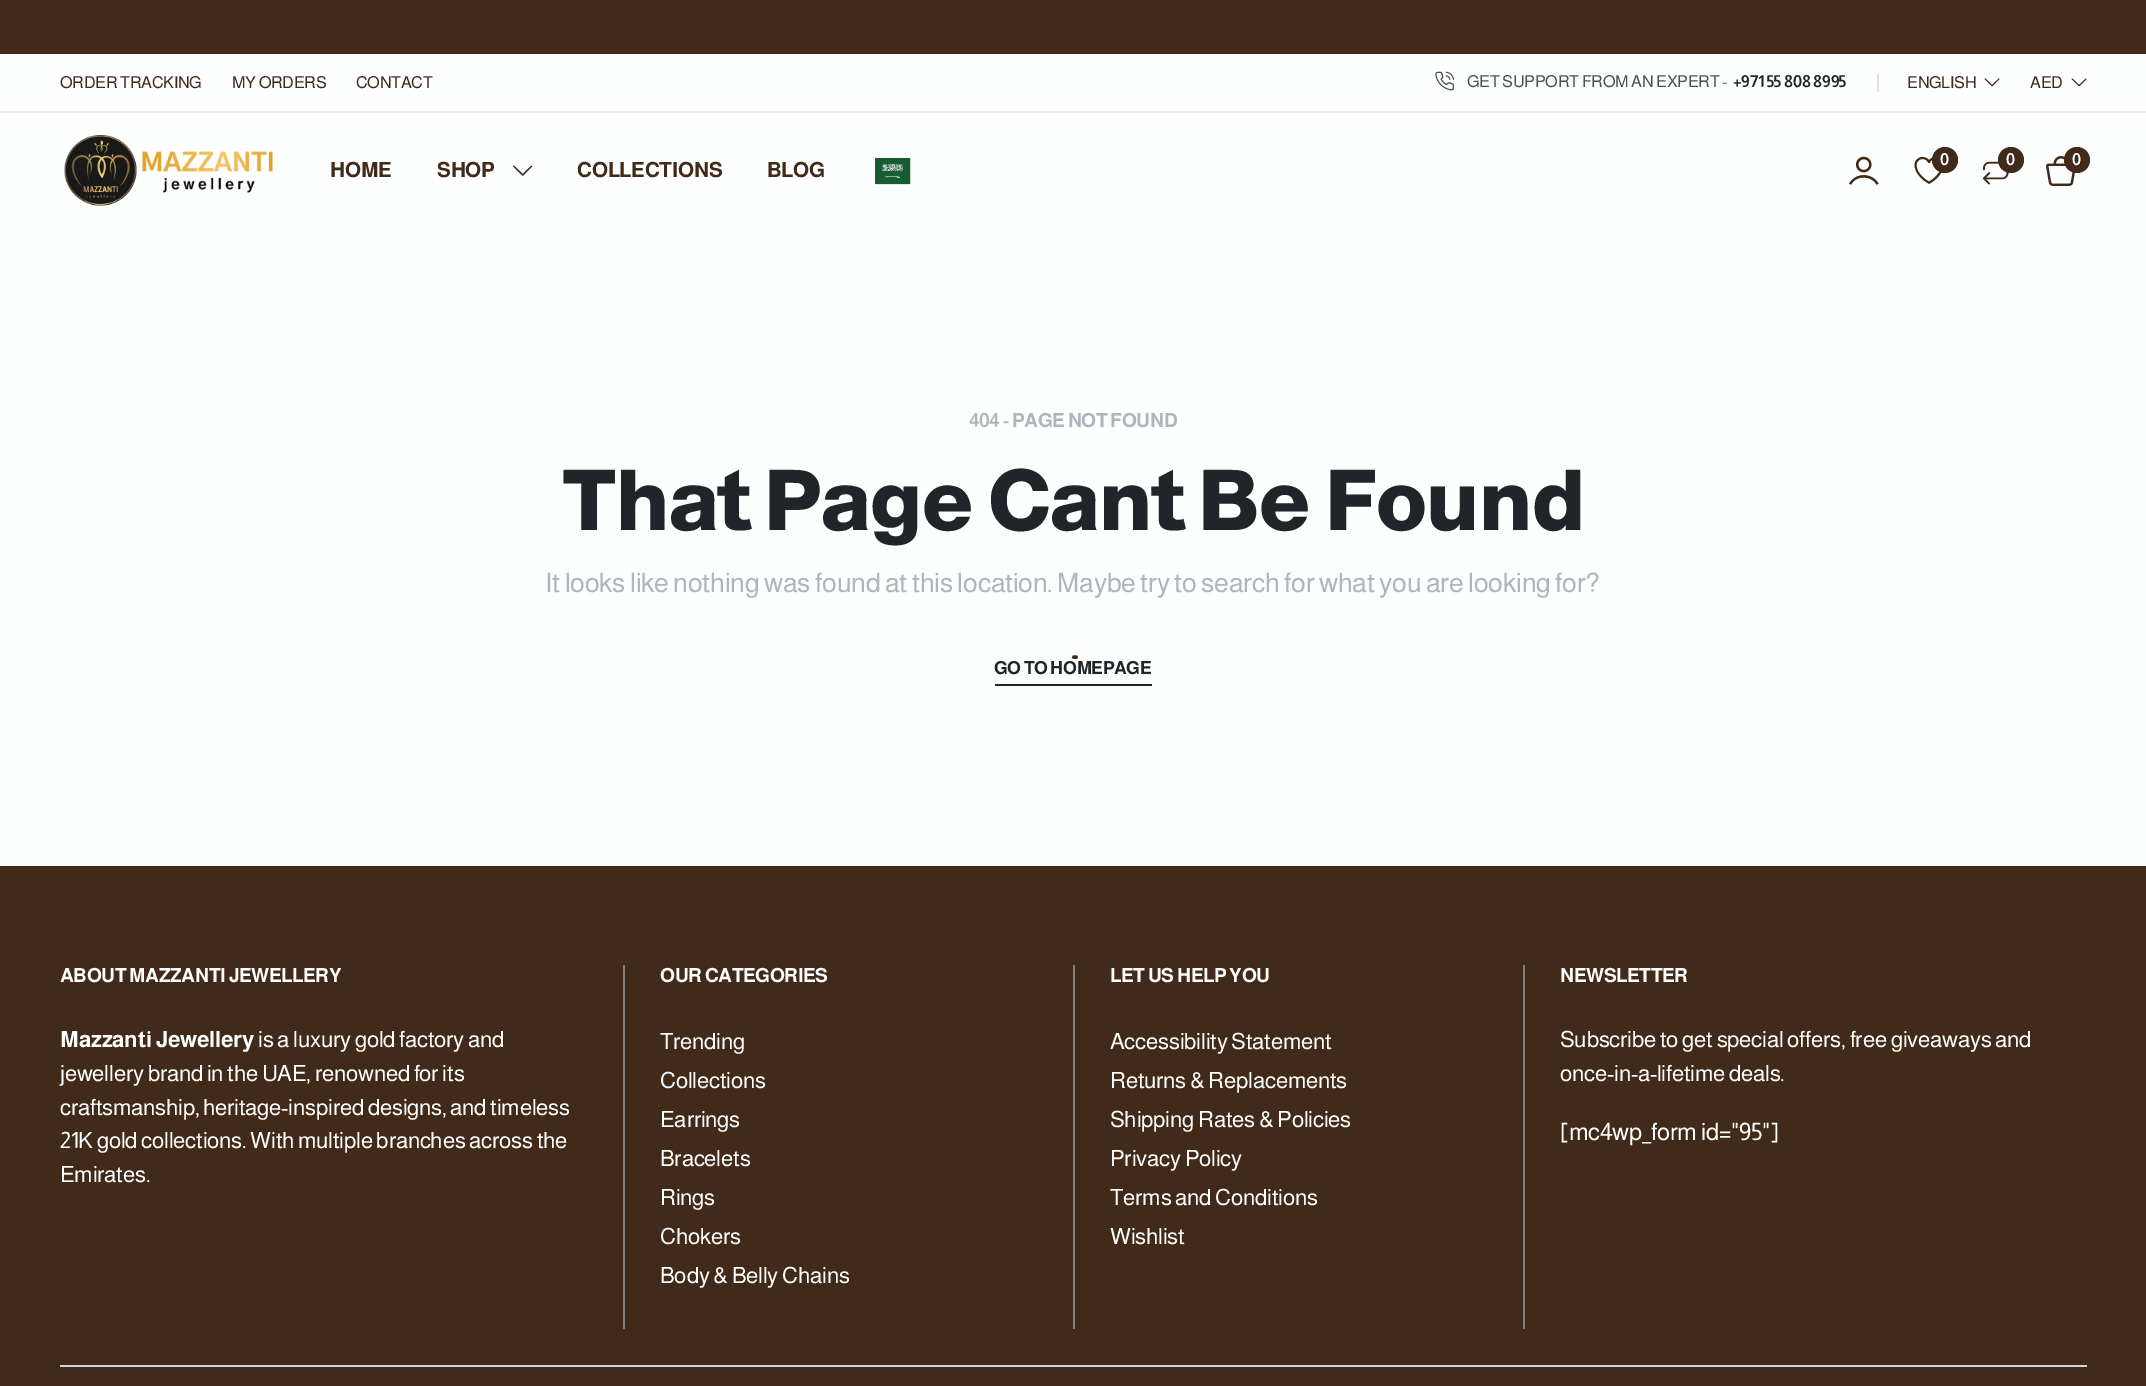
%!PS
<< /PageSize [2146 1386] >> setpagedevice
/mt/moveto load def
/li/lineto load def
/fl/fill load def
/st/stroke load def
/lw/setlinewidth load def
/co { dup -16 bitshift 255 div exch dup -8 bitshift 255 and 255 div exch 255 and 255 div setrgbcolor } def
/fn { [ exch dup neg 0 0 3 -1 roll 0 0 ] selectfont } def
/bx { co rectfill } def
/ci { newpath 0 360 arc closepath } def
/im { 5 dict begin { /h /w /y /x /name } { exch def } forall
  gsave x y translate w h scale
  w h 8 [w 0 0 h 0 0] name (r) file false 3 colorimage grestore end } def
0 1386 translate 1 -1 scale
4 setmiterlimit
0 0 2146 1386 16#FDFFFE bx
0 0 2146 54 16#412A19 bx
0 111 2146 2 16#EAE7E6 bx
(media/1.raw) 1435 71 20 20 im
1877 74 2 18 16#E3DFDD bx
(media/2.raw) 1984 78 16 9 im
(media/2.raw) 2071 78 16 9 im
(media/3.raw) 1849 156 30 29 im
(media/4.raw) 1914 156 28 28 im
16#412A19 co
1945 160 13 ci fl
(media/5.raw) 1982 161 27 24 im
2011 160 13 ci fl
(media/6.raw) 2046 156 29 30 im
2077 160 13 ci fl
(media/7.raw) 64 135 209 71 im
(media/8.raw) 513 165 20 11 im
(media/9.raw) 875 158 36 27 im
995 684 157 2 16#212529 bx
0 866 2146 520 16#412A19 bx
623 965 2 364 16#808080 bx
1073 965 2 364 16#808080 bx
1523 965 2 364 16#808080 bx
60 1365 2027 2 16#CED4DA bx
16#412A19 co
3.6 lw
1 setlinecap
1074 657 mt 1076 657 li st
/Almarai-Regular 16.5 fn
60 88 mt -.25 0 (ORDER TRACKING) ashow
232 88 mt -.25 0 (MY ORDERS) ashow
356 88 mt -.25 0 (CONTACT) ashow
16#495057 co
1467 87 mt -.25 0 (GET SUPPORT FROM AN EXPERT -) ashow
/Almarai-Bold 16.5 fn
16#212529 co
1733 87 mt -.25 0 (+971 55 808 8995) ashow
/Almarai-Regular 16.5 fn
16#412A19 co
1907 88 mt -.25 0 (ENGLISH) ashow
2030 88 mt -.25 0 (AED) ashow
/Almarai-Bold 16.5 fn
16#FFFFFF co
1940 165 mt -.25 0 (0) ashow
2006 165 mt -.25 0 (0) ashow
2072 165 mt -.25 0 (0) ashow
/Almarai-Bold 21 fn
16#412A19 co
330 177 mt -.25 0 (HOME) ashow
437 177 mt -.25 0 (SHOP) ashow
577 177 mt -.25 0 (COLLECTIONS) ashow
767 177 mt -.25 0 (BLOG) ashow
/Almarai-Bold 19.5 fn
16#ADB5BD co
969 427 mt -.4 0 (404 - PAGE NOT FOUND) ashow
/Almarai-ExtraBold 84 fn
16#212529 co
562 530 mt -.4 0 (That Page Cant Be Found) ashow
/Almarai-Regular 27 fn
16#ADB5BD co
545 592 mt -.25 0 (It looks like nothing was found at this location. Maybe try to search for what you are looking for?) ashow
/Almarai-Bold 18 fn
16#212529 co
994 674 mt -.4 0 (GO TO HOMEPAGE) ashow
/Almarai-Bold 19.5 fn
16#FFFFFF co
60 982 mt -.4 0 (ABOUT MAZZANTI JEWELLERY) ashow
/Almarai-Bold 22.5 fn
60 1047 mt -.25 0 (Mazzanti Jewellery) ashow
/Almarai-Regular 22.5 fn
258 1047 mt -.25 0 (is a luxury gold factory and) ashow
60 1081 mt -.25 0 (jewellery brand in the UAE, renowned for its) ashow
60 1115 mt -.25 0 (craftsmanship, heritage-inspired designs, and timeless) ashow
60 1148 mt -.25 0 (21K gold collections. With multiple branches across the) ashow
60 1182 mt -.25 0 (Emirates.) ashow
/Almarai-Bold 19.5 fn
660 982 mt -.4 0 (OUR CATEGORIES) ashow
/Almarai-Regular 22.5 fn
660 1049 mt -.25 0 (Trending) ashow
660 1088 mt -.25 0 (Collections) ashow
660 1127 mt -.25 0 (Earrings) ashow
660 1166 mt -.25 0 (Bracelets) ashow
660 1205 mt -.25 0 (Rings) ashow
660 1244 mt -.25 0 (Chokers) ashow
660 1283 mt -.25 0 (Body & Belly Chains) ashow
/Almarai-Bold 19.5 fn
1110 982 mt -.4 0 (LET US HELP YOU) ashow
/Almarai-Regular 22.5 fn
1110 1049 mt -.25 0 (Accessibility Statement) ashow
1110 1088 mt -.25 0 (Returns & Replacements) ashow
1110 1127 mt -.25 0 (Shipping Rates & Policies) ashow
1110 1166 mt -.25 0 (Privacy Policy) ashow
1110 1205 mt -.25 0 (Terms and Conditions) ashow
1110 1244 mt -.25 0 (Wishlist) ashow
/Almarai-Bold 19.5 fn
1560 982 mt -.4 0 (NEWSLETTER) ashow
/Almarai-Regular 22.5 fn
1560 1047 mt -.25 0 (Subscribe to get special offers, free giveaways and) ashow
1560 1081 mt -.25 0 (once-in-a-lifetime deals.) ashow
/Almarai-Regular 24 fn
1560 1140 mt -.25 0 ([mc4wp_form id="95"]) ashow
showpage
